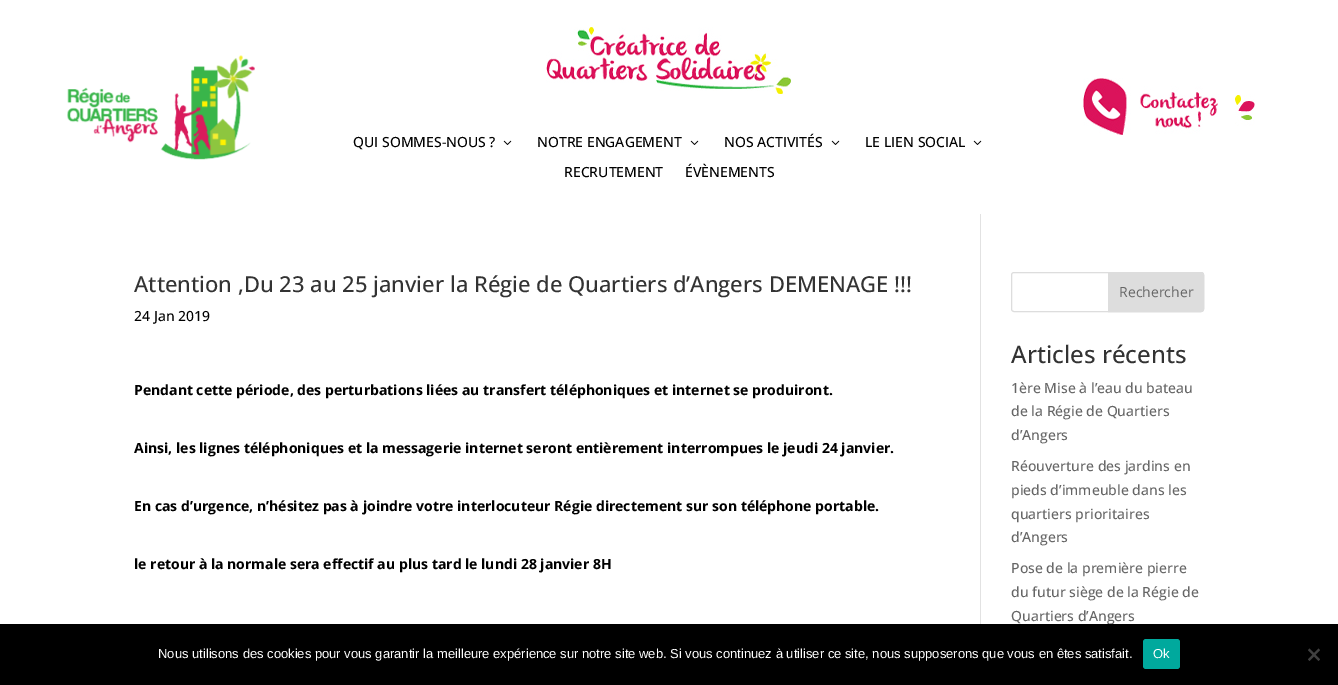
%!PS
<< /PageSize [1338 685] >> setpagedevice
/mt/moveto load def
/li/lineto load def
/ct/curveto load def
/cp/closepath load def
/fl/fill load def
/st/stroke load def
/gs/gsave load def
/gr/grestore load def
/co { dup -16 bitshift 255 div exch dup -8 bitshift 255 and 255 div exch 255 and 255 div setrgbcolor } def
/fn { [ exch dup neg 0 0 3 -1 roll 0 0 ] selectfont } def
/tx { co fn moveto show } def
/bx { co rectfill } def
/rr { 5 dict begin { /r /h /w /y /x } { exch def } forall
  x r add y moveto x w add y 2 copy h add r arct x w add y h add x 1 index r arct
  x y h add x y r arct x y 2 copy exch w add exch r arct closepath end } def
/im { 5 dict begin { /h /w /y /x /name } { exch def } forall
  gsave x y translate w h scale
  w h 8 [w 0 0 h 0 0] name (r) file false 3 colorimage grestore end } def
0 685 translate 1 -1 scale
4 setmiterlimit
0 0 1338 685 16#FFFFFF bx
(media/1.raw) 67 55 188 105 im
(media/2.raw) 1083 78 172 57 im
(media/3.raw) 546 27 245 67 im
(media/4.raw) 503 140 9 5 im
(media/4.raw) 690 140 9 5 im
(media/4.raw) 831 140 9 5 im
(media/4.raw) 973 140 9 5 im
980 214 1 410 16#E2E2E2 bx
16#DDDDDD co
1011.5 272.5 192 39 2.5 rr st
1108.5 272.5 mt 1201 272.5 li 1202.5 272.5 1203.5 273.5 1203.5 275 ct 1203.5 309 li 1203.5 310.5 1202.5 311.5 1201 311.5 ct 1108.5 311.5 li cp gs fl gr
st
(QUI SOMMES-NOUS ?) 353 147 /OpenSans-Medium 14 16#000000 tx
(NOTRE ENGAGEMENT) 537 147 /OpenSans-Medium 14 16#000000 tx
(NOS ACTIVITÉS) 724 147 /OpenSans-Medium 14 16#000000 tx
(LE LIEN SOCIAL) 865 147 /OpenSans-Medium 14 16#000000 tx
(RECRUTEMENT) 564 177 /OpenSans-Medium 14 16#000000 tx
(ÉVÈNEMENTS) 685 177 /OpenSans-Medium 14 16#000000 tx
(Attention ,Du 23 au 25 janvier la Régie de Quartiers d’Angers DEMENAGE !!!) 134 292 /OpenSans-Medium 22 16#333333 tx
(24 Jan 2019) 134 321 /OpenSans-Medium 14 16#000000 tx
(Pendant cette période, des perturbations liées au transfert téléphoniques et internet se produiront.) 134 395 /OpenSans-Bold 14 16#000000 tx
(Ainsi, les lignes téléphoniques et la messagerie internet seront entièrement interrompues le jeudi 24 janvier.) 134 453 /OpenSans-Bold 14 16#000000 tx
(En cas d’urgence, n’hésitez pas à joindre votre interlocuteur Régie directement sur son téléphone portable.) 134 511 /OpenSans-Bold 14 16#000000 tx
(le retour à la normale sera effectif au plus tard le lundi 28 janvier 8H) 134 569 /OpenSans-Bold 14 16#000000 tx
(Rechercher) 1119 297 /OpenSans-Regular 14 16#666666 tx
(Articles récents) 1011 363 /OpenSans-Medium 24 16#333333 tx
(1ère Mise à l’eau du bateau) 1011 393 /OpenSans-Medium 14 16#666666 tx
(de la Régie de Quartiers) 1011 416 /OpenSans-Medium 14 16#666666 tx
(d’Angers) 1011 440 /OpenSans-Medium 14 16#666666 tx
(Réouverture des jardins en) 1011 471 /OpenSans-Medium 14 16#666666 tx
(pieds d’immeuble dans les) 1011 495 /OpenSans-Medium 14 16#666666 tx
(quartiers prioritaires) 1011 519 /OpenSans-Medium 14 16#666666 tx
(d’Angers) 1011 542 /OpenSans-Medium 14 16#666666 tx
(Pose de la première pierre) 1011 573 /OpenSans-Medium 14 16#666666 tx
(du futur siège de la Régie de) 1011 597 /OpenSans-Medium 14 16#666666 tx
(Quartiers d’Angers) 1011 621 /OpenSans-Medium 14 16#666666 tx
0 624 1338 61 16#000000 bx
(Nous utilisons des cookies pour vous garantir la meilleure expérience sur notre site web. Si vous continuez à utiliser ce site, nous supposerons que vous en êtes satisfait.) 158 658 /LiberationSans-Regular 13 16#FFFFFF tx
16#00A99D co
1143 639 37 30 3 rr fl
(Ok) 1153 658 /LiberationSans-Regular 13 16#FFFFFF tx
16#404040 co
1318.5 648.5 mt 1320 650 li 1309.5 661 li 1308 659.5 li cp fl
1308 650 mt 1309.5 648.5 li 1320 659.5 li 1318.5 661 li cp fl
showpage
